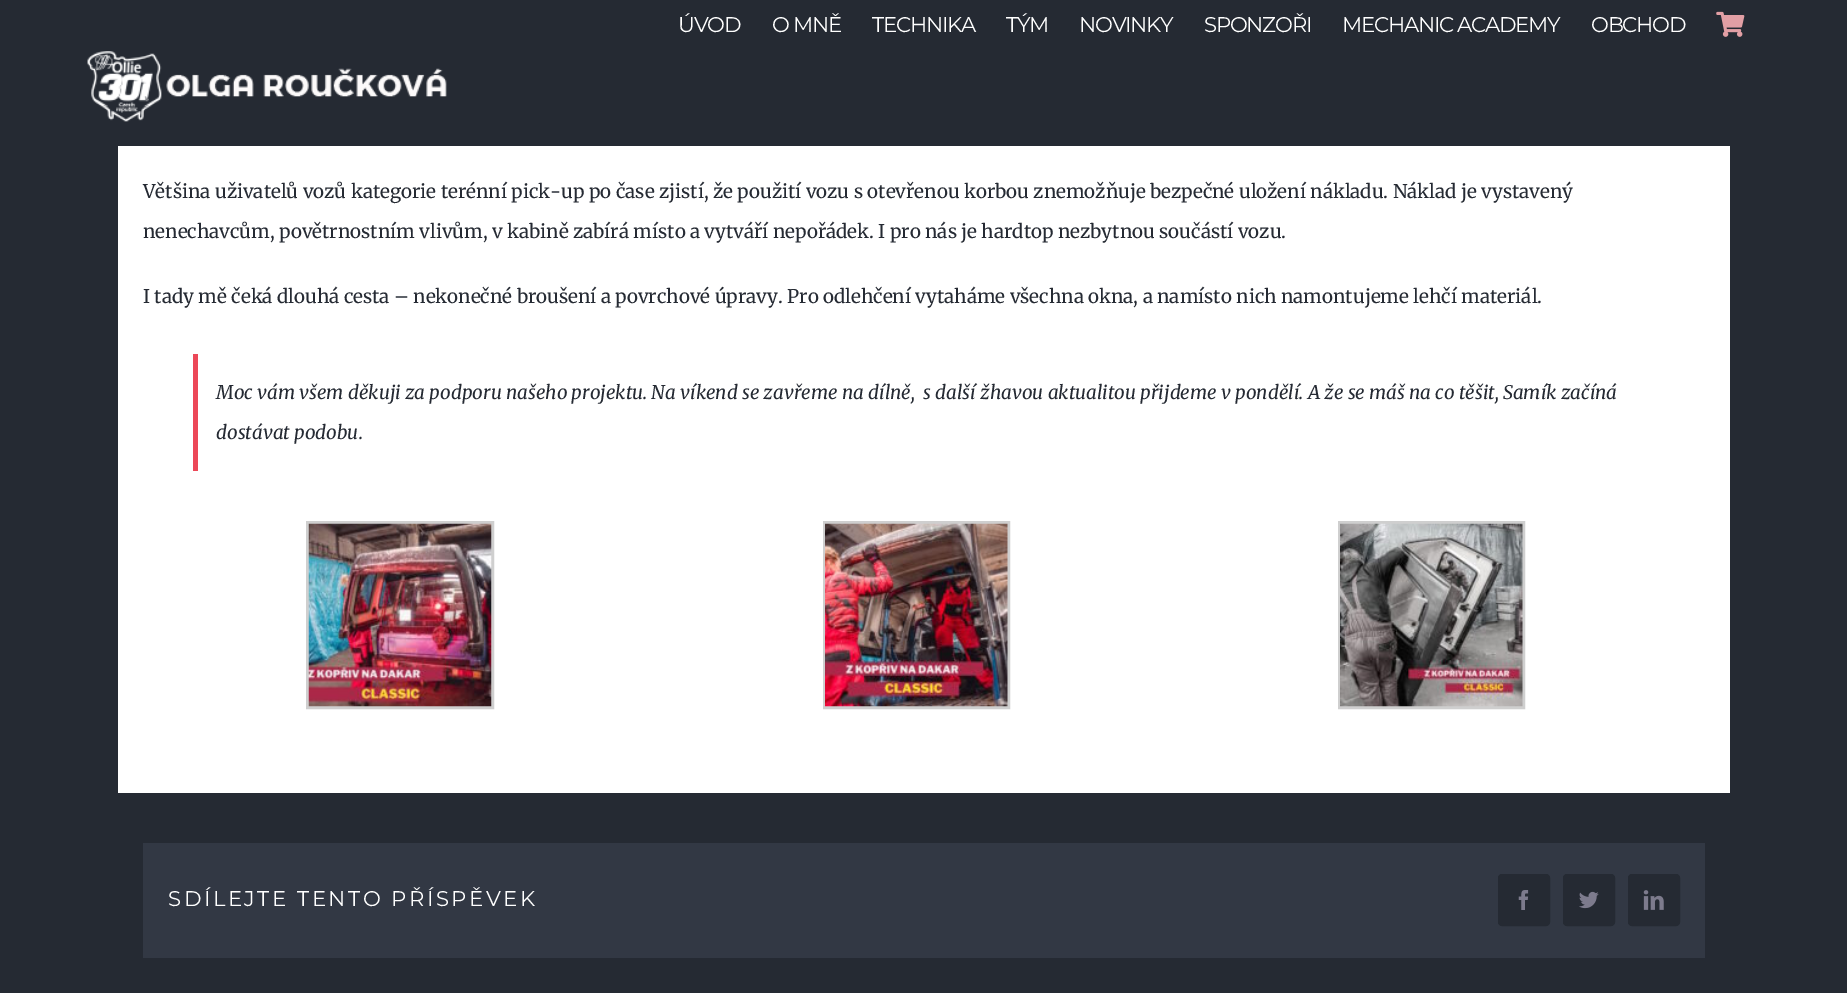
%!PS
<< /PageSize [1847 993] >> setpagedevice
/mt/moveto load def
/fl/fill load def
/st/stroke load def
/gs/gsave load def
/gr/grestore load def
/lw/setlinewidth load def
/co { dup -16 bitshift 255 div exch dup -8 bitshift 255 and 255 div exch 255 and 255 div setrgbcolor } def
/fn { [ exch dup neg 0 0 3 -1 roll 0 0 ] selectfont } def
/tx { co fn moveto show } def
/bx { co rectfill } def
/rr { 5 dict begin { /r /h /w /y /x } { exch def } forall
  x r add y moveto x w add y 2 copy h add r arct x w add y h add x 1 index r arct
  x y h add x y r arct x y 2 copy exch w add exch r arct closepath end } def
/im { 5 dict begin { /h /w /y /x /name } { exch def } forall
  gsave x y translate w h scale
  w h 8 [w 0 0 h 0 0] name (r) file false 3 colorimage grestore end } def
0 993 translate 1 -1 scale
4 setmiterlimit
0 0 1847 993 16#252A33 bx
(media/1.raw) 1716 11 29 26 im
(media/2.raw) 87 51 360 71 im
118 146 1612 647 16#FFFFFF bx
193 354 5 117 16#EC4858 bx
16#CFCFCF co
3 lw
307.5 522.5 185 185 rectstroke
(media/3.raw) 308 523 184 184 im
824.5 522.5 184 185 rectstroke
(media/4.raw) 825 523 183 184 im
1339.5 522.5 184 185 rectstroke
(media/5.raw) 1340 523 183 184 im
143 843 1562 115 16#323844 bx
16#252A33 co
1498.5 874.5 51 51 3.5 rr gs fl gr
1 lw
st
(media/6.raw) 1518 890 11 20 im
1563.5 874.5 51 51 3.5 rr gs fl gr
st
(media/7.raw) 1579 891 20 18 im
1628.5 874.5 51 51 3.5 rr gs fl gr
st
(media/8.raw) 1643 890 21 20 im
/Montserrat-Regular 21.25 fn
16#FFFFFF co
678 32 mt -1.25 0 (ÚVOD) ashow
772 32 mt -1.25 0 (O MNĚ) ashow
872 32 mt -1.25 0 (TECHNIKA) ashow
1006 32 mt -1.25 0 (TÝM) ashow
1079 32 mt -1.25 0 (NOVINKY) ashow
1204 32 mt -1.25 0 (SPONZOŘI) ashow
1342 32 mt -1.25 0 (MECHANIC ACADEMY) ashow
1591 32 mt -1.25 0 (OBCHOD) ashow
(Většina uživatelů vozů kategorie terénní pick-up po čase zjistí, že použití vozu s otevřenou korbou znemožňuje bezpečné uložení nákladu. Náklad je vystavený) 143 198 /Merriweather-Regular 18.75 16#252A33 tx
(nenechavcům, povětrnostním vlivům, v kabině zabírá místo a vytváří nepořádek. I pro nás je hardtop nezbytnou součástí vozu.) 143 238 /Merriweather-Regular 18.75 16#252A33 tx
(I tady mě čeká dlouhá cesta – nekonečné broušení a povrchové úpravy. Pro odlehčení vytaháme všechna okna, a namísto nich namontujeme lehčí materiál.) 143 303 /Merriweather-Regular 18.75 16#252A33 tx
(Moc vám všem děkuji za podporu našeho projektu. Na víkend se zavřeme na dílně,  s další žhavou aktualitou přijdeme v pondělí. A že se máš na co těšit, Samík začíná) 216 399 /Merriweather-Italic 18.75 16#252A33 tx
(dostávat podobu.) 216 439 /Merriweather-Italic 18.75 16#252A33 tx
/Montserrat-Regular 21.25 fn
16#FFFFFF co
168 906 mt 2.5 0 (SDÍLEJTE TENTO PŘÍSPĚVEK) ashow
showpage
